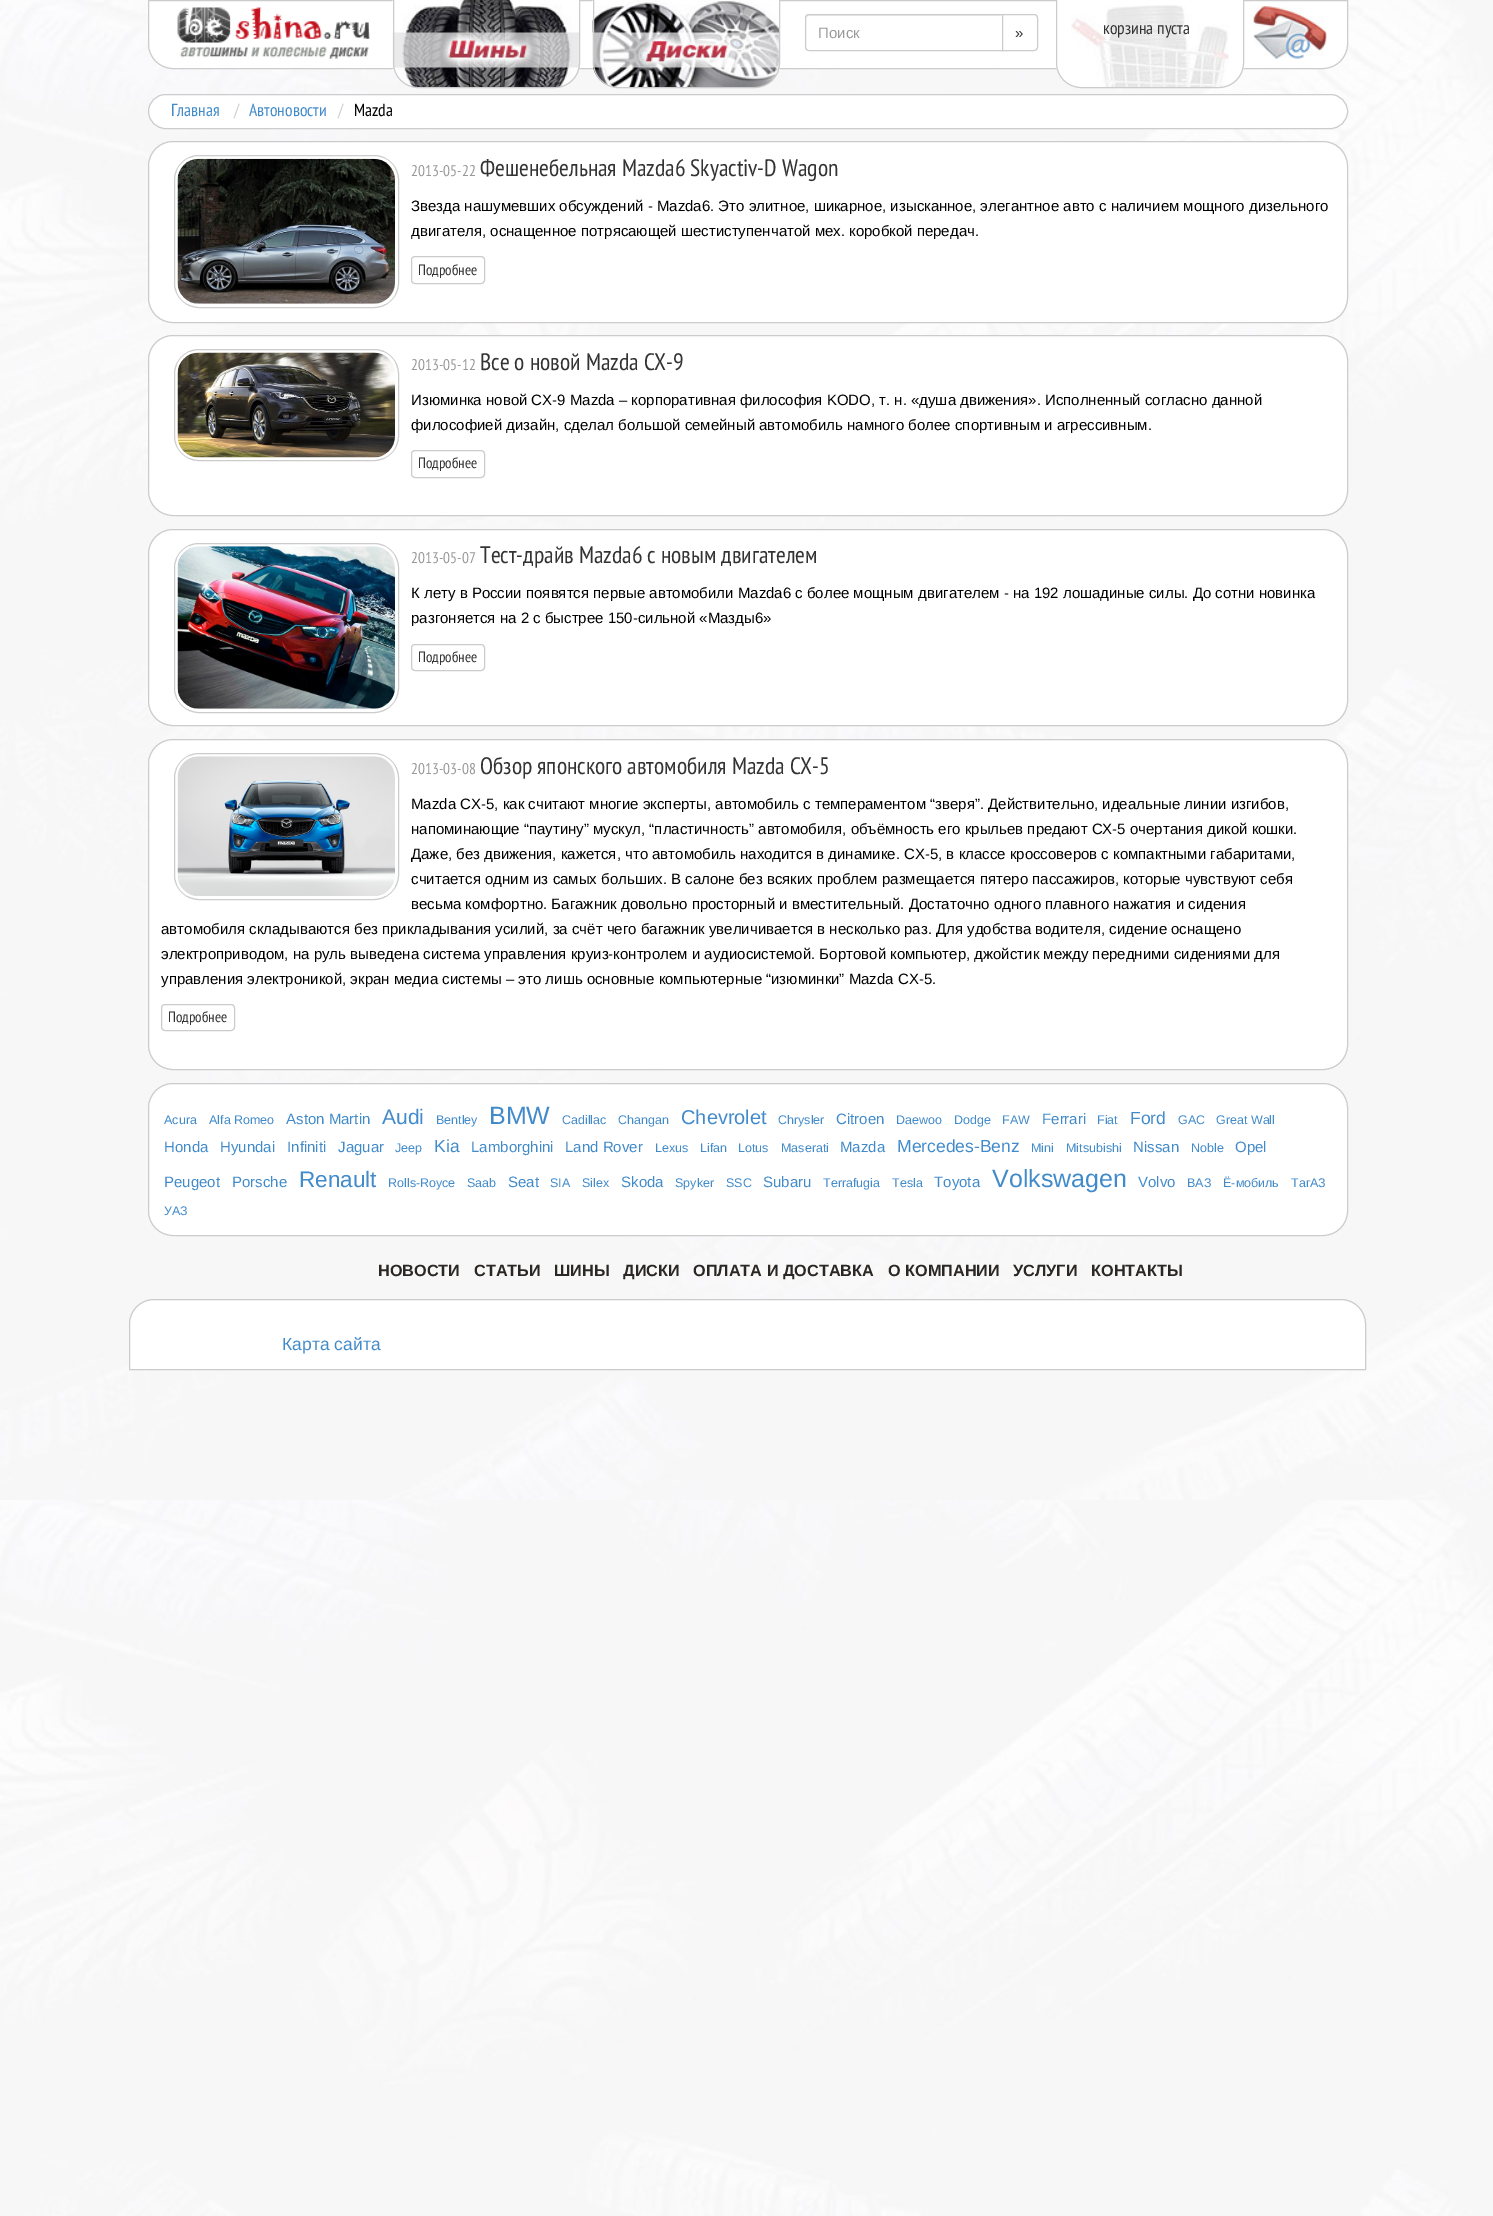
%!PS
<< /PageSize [1493 2216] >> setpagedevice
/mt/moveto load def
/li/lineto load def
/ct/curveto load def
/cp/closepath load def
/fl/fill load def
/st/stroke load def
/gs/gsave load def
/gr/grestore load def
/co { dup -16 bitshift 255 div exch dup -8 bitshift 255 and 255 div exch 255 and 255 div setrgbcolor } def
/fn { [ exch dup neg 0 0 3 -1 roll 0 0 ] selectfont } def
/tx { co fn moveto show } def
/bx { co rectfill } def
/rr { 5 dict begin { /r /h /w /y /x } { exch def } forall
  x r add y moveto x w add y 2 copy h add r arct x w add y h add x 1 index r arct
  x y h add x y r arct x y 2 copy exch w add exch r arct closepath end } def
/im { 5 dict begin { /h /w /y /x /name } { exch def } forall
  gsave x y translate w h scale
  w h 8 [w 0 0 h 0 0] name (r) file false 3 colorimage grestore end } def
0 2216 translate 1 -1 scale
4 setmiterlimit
0 0 1493 2216 16#FFFFFF bx
(media/1.raw) 0 0 1493 2216 im
148.5 .5 mt 1347.5 .5 li 1347.5 44 li 1347.5 57.5 1336.5 68.5 1323 68.5 ct 173 68.5 li 159.5 68.5 148.5 57.5 148.5 44 ct cp gs fl gr
16#CCCCCC co
st
(media/2.raw) 177 7 193 52 im
(media/3.raw) 392 0 188 88 im
393.5 -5.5 mt 579.5 -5.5 li 579.5 63 li 579.5 76.5 568.5 87.5 555 87.5 ct 418 87.5 li 404.5 87.5 393.5 76.5 393.5 63 ct cp st
(media/4.raw) 592 0 188 88 im
593.5 -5.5 mt 779.5 -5.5 li 779.5 63 li 779.5 76.5 768.5 87.5 755 87.5 ct 618 87.5 li 604.5 87.5 593.5 76.5 593.5 63 ct cp st
1001.5 14.5 mt 1034 14.5 li 1036 14.5 1037.5 16 1037.5 18 ct 1037.5 47 li 1037.5 49 1036 50.5 1034 50.5 ct 1001.5 50.5 li cp st
16#FFFFFF co
809 14 mt 1003 14 li 1003 51 li 809 51 li 807 51 805 49 805 47 ct 805 18 li 805 16 807 14 809 14 ct cp fl
16#ECECEC co
809 16 mt 1001 16 li 1001 15 li 808 15 li 806 15 806 17 806 19 ct 806 17 807 16 809 16 ct cp fl
16#CCCCCC co
809 14.5 mt 1002.5 14.5 li 1002.5 50.5 li 809 50.5 li 807 50.5 805.5 49 805.5 47 ct 805.5 18 li 805.5 16 807 14.5 809 14.5 ct cp st
16#FFFFFF co
1056 -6 mt 1244 -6 li 1244 63 li 1244 77 1233 88 1219 88 ct 1081 88 li 1067 88 1056 77 1056 63 ct cp fl
(media/5.raw) 1071 5 158 83 im
16#CCCCCC co
1056.5 -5.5 mt 1243.5 -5.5 li 1243.5 63 li 1243.5 76.5 1232.5 87.5 1219 87.5 ct 1081 87.5 li 1067.5 87.5 1056.5 76.5 1056.5 63 ct cp st
(media/6.raw) 1253 6 74 53 im
16#FFFFFF co
148.5 94.5 1199 34 17 rr gs fl gr
16#CCCCCC co
st
16#FFFFFF co
148.5 141.5 1199 181 24.5 rr gs fl gr
16#CCCCCC co
st
174.5 155.5 224 152 24.5 rr st
(media/7.raw) 177 158 218 146 im
411.5 256.5 73 27 3.5 rr st
16#FFFFFF co
148.5 335.5 1199 180 24.5 rr gs fl gr
16#CCCCCC co
st
174.5 349.5 224 111 24.5 rr st
(media/8.raw) 177 352 218 106 im
411.5 450.5 73 27 3.5 rr st
16#FFFFFF co
148.5 529.5 1199 196 24.5 rr gs fl gr
16#CCCCCC co
st
174.5 543.5 224 169 24.5 rr st
(media/9.raw) 177 546 218 163 im
411.5 644.5 73 26 3.5 rr st
16#FFFFFF co
148.5 739.5 1199 330 24.5 rr gs fl gr
16#CCCCCC co
st
174.5 753.5 224 146 24.5 rr st
(media/10.raw) 177 756 218 140 im
161.5 1004.5 73 26 3.5 rr st
16#FFFFFF co
148.5 1083.5 1199 152 24.5 rr gs fl gr
16#CCCCCC co
st
16#FFFFFF co
154 1299.5 mt 1341 1299.5 li 1354.5 1299.5 1365.5 1310.5 1365.5 1324 ct 1365.5 1369.5 li 129.5 1369.5 li 129.5 1324 li 129.5 1310.5 140.5 1299.5 154 1299.5 ct cp gs fl gr
16#CCCCCC co
st
(Поиск) 818 38 /LiberationSans-Regular 15 16#999999 tx
(») 1015 38 /LiberationSans-Regular 15 16#333333 tx
(корзина пуста) 1103 34 /PTSansNarrow-Regular 17.5 16#333333 tx
(Главная) 171 116 /PTSansNarrow-Regular 17.5 16#428BCA tx
(/) 234 116 /PTSansNarrow-Regular 17.5 16#CCCCCC tx
(Автоновости) 249 116 /PTSansNarrow-Regular 17.5 16#428BCA tx
(/) 338 116 /PTSansNarrow-Regular 17.5 16#CCCCCC tx
(Mazda) 354 116 /PTSansNarrow-Regular 17.5 16#000000 tx
(2013-05-22) 411 176 /PTSansNarrow-Regular 15.5 16#999999 tx
(Фешенебельная Mazda6 Skyactiv-D Wagon) 480 176 /PTSansNarrow-Regular 23.75 16#333333 tx
(Звезда нашумевших обсуждений - Mazda6. Это элитное, шикарное, изысканное, элегантное авто с наличием мощного дизельного) 411 211 /LiberationSans-Regular 15 16#000000 tx
(двигателя, оснащенное потрясающей шестиступенчатой мех. коробкой передач.) 411 236 /LiberationSans-Regular 15 16#000000 tx
(Подробнее) 418 275 /PTSansNarrow-Regular 15 16#333333 tx
(2013-05-12) 411 370 /PTSansNarrow-Regular 15.5 16#999999 tx
(Все о новой Mazda CX-9) 480 370 /PTSansNarrow-Regular 23.75 16#333333 tx
(Изюминка новой CX-9 Mazda – корпоративная философия KODO, т. н. «душа движения». Исполненный согласно данной) 411 405 /LiberationSans-Regular 15 16#000000 tx
(философией дизайн, сделал большой семейный автомобиль намного более спортивным и агрессивным.) 411 430 /LiberationSans-Regular 15 16#000000 tx
(Подробнее) 418 468 /PTSansNarrow-Regular 15 16#333333 tx
(2013-05-07) 411 563 /PTSansNarrow-Regular 15.5 16#999999 tx
(Тест-драйв Mazda6 с новым двигателем) 480 563 /PTSansNarrow-Regular 23.75 16#333333 tx
(К лету в России появятся первые автомобили Mazda6 с более мощным двигателем - на 192 лошадиные силы. До сотни новинка) 411 598 /LiberationSans-Regular 15 16#000000 tx
(разгоняется на 2 с быстрее 150-сильной «Мазды6») 411 623 /LiberationSans-Regular 15 16#000000 tx
(Подробнее) 418 662 /PTSansNarrow-Regular 15 16#333333 tx
(2013-03-08) 411 774 /PTSansNarrow-Regular 15.5 16#999999 tx
(Обзор японского автомобиля Mazda CX-5) 480 774 /PTSansNarrow-Regular 23.75 16#333333 tx
(Mazda CX-5, как считают многие эксперты, автомобиль с темпераментом “зверя”. Действительно, идеальные линии изгибов,) 411 809 /LiberationSans-Regular 15 16#000000 tx
(напоминающие “паутину” мускул, “пластичность” автомобиля, объёмность его крыльев предают CX-5 очертания дикой кошки.) 411 834 /LiberationSans-Regular 15 16#000000 tx
(Даже, без движения, кажется, что автомобиль находится в динамике. CX-5, в классе кроссоверов с компактными габаритами,) 411 859 /LiberationSans-Regular 15 16#000000 tx
(считается одним из самых больших. В салоне без всяких проблем размещается пятеро пассажиров, которые чувствуют себя) 411 884 /LiberationSans-Regular 15 16#000000 tx
(весьма комфортно. Багажник довольно просторный и вместительный. Достаточно одного плавного нажатия и сидения) 411 909 /LiberationSans-Regular 15 16#000000 tx
(автомобиля складываются без прикладывания усилий, за счёт чего багажник увеличивается в несколько раз. Для удобства водителя, сидение оснащено) 161 934 /LiberationSans-Regular 15 16#000000 tx
(электроприводом, на руль выведена система управления круиз-контролем и аудиосистемой. Бортовой компьютер, джойстик между передними сидениями для) 161 959 /LiberationSans-Regular 15 16#000000 tx
(управления электроникой, экран медиа системы – это лишь основные компьютерные “изюминки” Mazda CX-5.) 161 984 /LiberationSans-Regular 15 16#000000 tx
(Подробнее) 168 1022 /PTSansNarrow-Regular 15 16#333333 tx
(Acura) 164 1124 /LiberationSans-Regular 12.5 16#428BCA tx
(Alfa Romeo) 209 1124 /LiberationSans-Regular 12.5 16#428BCA tx
(Aston Martin) 286 1124 /LiberationSans-Regular 15 16#428BCA tx
(Audi) 382 1124 /LiberationSans-Regular 21 16#428BCA tx
(Bentley) 436 1124 /LiberationSans-Regular 12.5 16#428BCA tx
(BMW) 489 1124 /LiberationSans-Regular 25 16#428BCA tx
(Cadillac) 562 1124 /LiberationSans-Regular 12.5 16#428BCA tx
(Changan) 618 1124 /LiberationSans-Regular 12.5 16#428BCA tx
(Chevrolet) 681 1124 /LiberationSans-Regular 20 16#428BCA tx
(Chrysler) 778 1124 /LiberationSans-Regular 12.5 16#428BCA tx
(Citroen) 836 1124 /LiberationSans-Regular 15 16#428BCA tx
(Daewoo) 896 1124 /LiberationSans-Regular 12.5 16#428BCA tx
(Dodge) 954 1124 /LiberationSans-Regular 12.5 16#428BCA tx
(FAW) 1002 1124 /LiberationSans-Regular 12.5 16#428BCA tx
(Ferrari) 1042 1124 /LiberationSans-Regular 15 16#428BCA tx
(Fiat) 1097 1124 /LiberationSans-Regular 12.5 16#428BCA tx
(Ford) 1130 1124 /LiberationSans-Regular 17.5 16#428BCA tx
(GAC) 1178 1124 /LiberationSans-Regular 12.5 16#428BCA tx
(Great Wall) 1216 1124 /LiberationSans-Regular 12.5 16#428BCA tx
(Honda) 164 1152 /LiberationSans-Regular 15 16#428BCA tx
(Hyundai) 220 1152 /LiberationSans-Regular 15 16#428BCA tx
(Infiniti) 287 1152 /LiberationSans-Regular 15 16#428BCA tx
(Jaguar) 338 1152 /LiberationSans-Regular 15 16#428BCA tx
(Jeep) 395 1152 /LiberationSans-Regular 12.5 16#428BCA tx
(Kia) 434 1152 /LiberationSans-Regular 17.5 16#428BCA tx
(Lamborghini) 471 1152 /LiberationSans-Regular 15 16#428BCA tx
(Land Rover) 565 1152 /LiberationSans-Regular 15 16#428BCA tx
(Lexus) 655 1152 /LiberationSans-Regular 12.5 16#428BCA tx
(Lifan) 700 1152 /LiberationSans-Regular 12.5 16#428BCA tx
(Lotus) 738 1152 /LiberationSans-Regular 12.5 16#428BCA tx
(Maserati) 781 1152 /LiberationSans-Regular 12.5 16#428BCA tx
(Mazda) 840 1152 /LiberationSans-Regular 15 16#428BCA tx
(Mercedes-Benz) 897 1152 /LiberationSans-Regular 17.5 16#428BCA tx
(Mini) 1031 1152 /LiberationSans-Regular 12.5 16#428BCA tx
(Mitsubishi) 1066 1152 /LiberationSans-Regular 12.5 16#428BCA tx
(Nissan) 1133 1152 /LiberationSans-Regular 15 16#428BCA tx
(Noble) 1191 1152 /LiberationSans-Regular 12.5 16#428BCA tx
(Opel) 1235 1152 /LiberationSans-Regular 15 16#428BCA tx
(Peugeot) 164 1187 /LiberationSans-Regular 15 16#428BCA tx
(Porsche) 232 1187 /LiberationSans-Regular 15 16#428BCA tx
(Renault) 299 1187 /LiberationSans-Regular 22.5 16#428BCA tx
(Rolls-Royce) 388 1187 /LiberationSans-Regular 12.5 16#428BCA tx
(Saab) 467 1187 /LiberationSans-Regular 12.5 16#428BCA tx
(Seat) 508 1187 /LiberationSans-Regular 15 16#428BCA tx
(SIA) 550 1187 /LiberationSans-Regular 12.5 16#428BCA tx
(Silex) 582 1187 /LiberationSans-Regular 12.5 16#428BCA tx
(Skoda) 621 1187 /LiberationSans-Regular 15 16#428BCA tx
(Spyker) 675 1187 /LiberationSans-Regular 12.5 16#428BCA tx
(SSC) 726 1187 /LiberationSans-Regular 12.5 16#428BCA tx
(Subaru) 763 1187 /LiberationSans-Regular 15 16#428BCA tx
(Terrafugia) 823 1187 /LiberationSans-Regular 12.5 16#428BCA tx
(Tesla) 892 1187 /LiberationSans-Regular 12.5 16#428BCA tx
(Toyota) 934 1187 /LiberationSans-Regular 15 16#428BCA tx
(Volkswagen) 992 1187 /LiberationSans-Regular 25 16#428BCA tx
(Volvo) 1138 1187 /LiberationSans-Regular 15 16#428BCA tx
(ВАЗ) 1187 1187 /LiberationSans-Regular 12.5 16#428BCA tx
(Ё-мобиль) 1223 1187 /LiberationSans-Regular 12.5 16#428BCA tx
(ТагАЗ) 1291 1187 /LiberationSans-Regular 12.5 16#428BCA tx
(УАЗ) 164 1215 /LiberationSans-Regular 12.5 16#428BCA tx
(НОВОСТИ) 378 1276 /LiberationSans-Bold 16.25 16#2B2724 tx
(СТАТЬИ) 474 1276 /LiberationSans-Bold 16.25 16#2B2724 tx
(ШИНЫ) 554 1276 /LiberationSans-Bold 16.25 16#2B2724 tx
(ДИСКИ) 623 1276 /LiberationSans-Bold 16.25 16#2B2724 tx
(ОПЛАТА И ДОСТАВКА) 693 1276 /LiberationSans-Bold 16.25 16#2B2724 tx
(О КОМПАНИИ) 888 1276 /LiberationSans-Bold 16.25 16#2B2724 tx
(УСЛУГИ) 1013 1276 /LiberationSans-Bold 16.25 16#2B2724 tx
(КОНТАКТЫ) 1091 1276 /LiberationSans-Bold 16.25 16#2B2724 tx
(Карта сайта) 282 1350 /LiberationSans-Regular 17.5 16#428BCA tx
showpage
